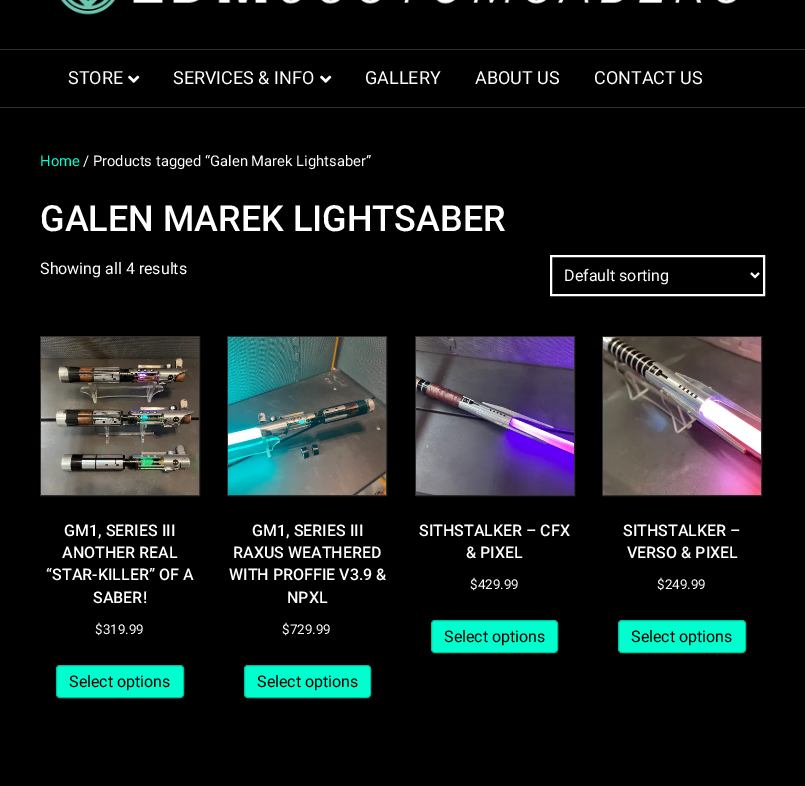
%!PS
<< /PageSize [805 786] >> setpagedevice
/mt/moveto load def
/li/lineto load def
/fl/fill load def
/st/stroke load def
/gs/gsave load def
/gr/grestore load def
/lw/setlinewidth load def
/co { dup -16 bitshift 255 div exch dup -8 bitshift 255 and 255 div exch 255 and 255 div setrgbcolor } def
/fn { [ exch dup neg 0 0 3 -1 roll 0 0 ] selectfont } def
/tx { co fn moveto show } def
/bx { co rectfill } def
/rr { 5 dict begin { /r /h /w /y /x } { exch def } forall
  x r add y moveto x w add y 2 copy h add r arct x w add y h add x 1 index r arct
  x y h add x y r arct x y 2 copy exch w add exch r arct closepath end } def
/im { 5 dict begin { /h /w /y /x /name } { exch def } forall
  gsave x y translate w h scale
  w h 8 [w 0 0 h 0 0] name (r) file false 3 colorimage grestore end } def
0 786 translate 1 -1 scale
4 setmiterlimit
0 0 805 786 16#000000 bx
(media/1.raw) 61 0 675 15 im
0 49 805 1 16#303030 bx
0 107 805 1 16#303030 bx
(media/2.raw) 128 75 12 8 im
(media/2.raw) 320 75 12 8 im
16#FFFFFF co
2 lw
551 256 213 39 rectstroke
751 273 mt 755 277 li 759 273 li st
16#303030 co
1 lw
40.5 336.5 159 159 rectstroke
(media/3.raw) 41 337 158 158 im
16#00FFCF co
56.5 665.5 127 32 3.5 rr gs fl gr
16#00C29D co
st
16#303030 co
227.5 336.5 159 159 rectstroke
(media/4.raw) 228 337 158 158 im
16#00FFCF co
244.5 665.5 126 32 3.5 rr gs fl gr
16#00C29D co
st
16#303030 co
415.5 336.5 159 159 rectstroke
(media/5.raw) 416 337 158 158 im
16#00FFCF co
431.5 620.5 126 32 3.5 rr gs fl gr
16#00C29D co
st
16#303030 co
602.5 336.5 159 159 rectstroke
(media/6.raw) 603 337 158 158 im
16#00FFCF co
618.5 620.5 127 32 3.5 rr gs fl gr
16#00C29D co
st
(STORE) 68 84 /Roboto-Regular 18 16#FFFFFF tx
(SERVICES & INFO) 173 84 /Roboto-Regular 18 16#FFFFFF tx
(GALLERY) 365 84 /Roboto-Regular 18 16#FFFFFF tx
(ABOUT US) 475 84 /Roboto-Regular 18 16#FFFFFF tx
(CONTACT US) 594 84 /Roboto-Regular 18 16#FFFFFF tx
(Home) 40 166 /Roboto-Regular 14.75 16#00FFCF tx
(/ Products tagged “Galen Marek Lightsaber”) 83 166 /Roboto-Regular 14.75 16#FFFFFF tx
(GALEN MAREK LIGHTSABER) 40 231 /Roboto-Medium 36 16#FFFFFF tx
(Showing all 4 results) 40 274 /Roboto-Regular 16 16#FFFFFF tx
(Default sorting) 564 281 /Roboto-Regular 16 16#FFFFFF tx
(GM1, SERIES III) 64 536 /Roboto-Medium 16 16#FFFFFF tx
(ANOTHER REAL) 62 558 /Roboto-Medium 16 16#FFFFFF tx
(“STAR-KILLER” OF A) 46 580 /Roboto-Medium 16 16#FFFFFF tx
(SABER!) 93 603 /Roboto-Medium 16 16#FFFFFF tx
($319.99) 95 634 /Roboto-Regular 13.5 16#FFFFFF tx
(Select options) 69 687 /Roboto-Regular 16 16#000000 tx
(GM1, SERIES III) 252 536 /Roboto-Medium 16 16#FFFFFF tx
(RAXUS WEATHERED) 233 558 /Roboto-Medium 16 16#FFFFFF tx
(WITH PROFFIE V3.9 &) 229 580 /Roboto-Medium 16 16#FFFFFF tx
(NPXL) 287 603 /Roboto-Medium 16 16#FFFFFF tx
($729.99) 282 634 /Roboto-Regular 13.5 16#FFFFFF tx
(Select options) 257 687 /Roboto-Regular 16 16#000000 tx
(SITHSTALKER – CFX) 419 536 /Roboto-Medium 16 16#FFFFFF tx
(& PIXEL) 466 558 /Roboto-Medium 16 16#FFFFFF tx
($429.99) 470 589 /Roboto-Regular 13.5 16#FFFFFF tx
(Select options) 444 642 /Roboto-Regular 16 16#000000 tx
(SITHSTALKER –) 623 536 /Roboto-Medium 16 16#FFFFFF tx
(VERSO & PIXEL) 627 558 /Roboto-Medium 16 16#FFFFFF tx
($249.99) 657 589 /Roboto-Regular 13.5 16#FFFFFF tx
(Select options) 631 642 /Roboto-Regular 16 16#000000 tx
showpage
